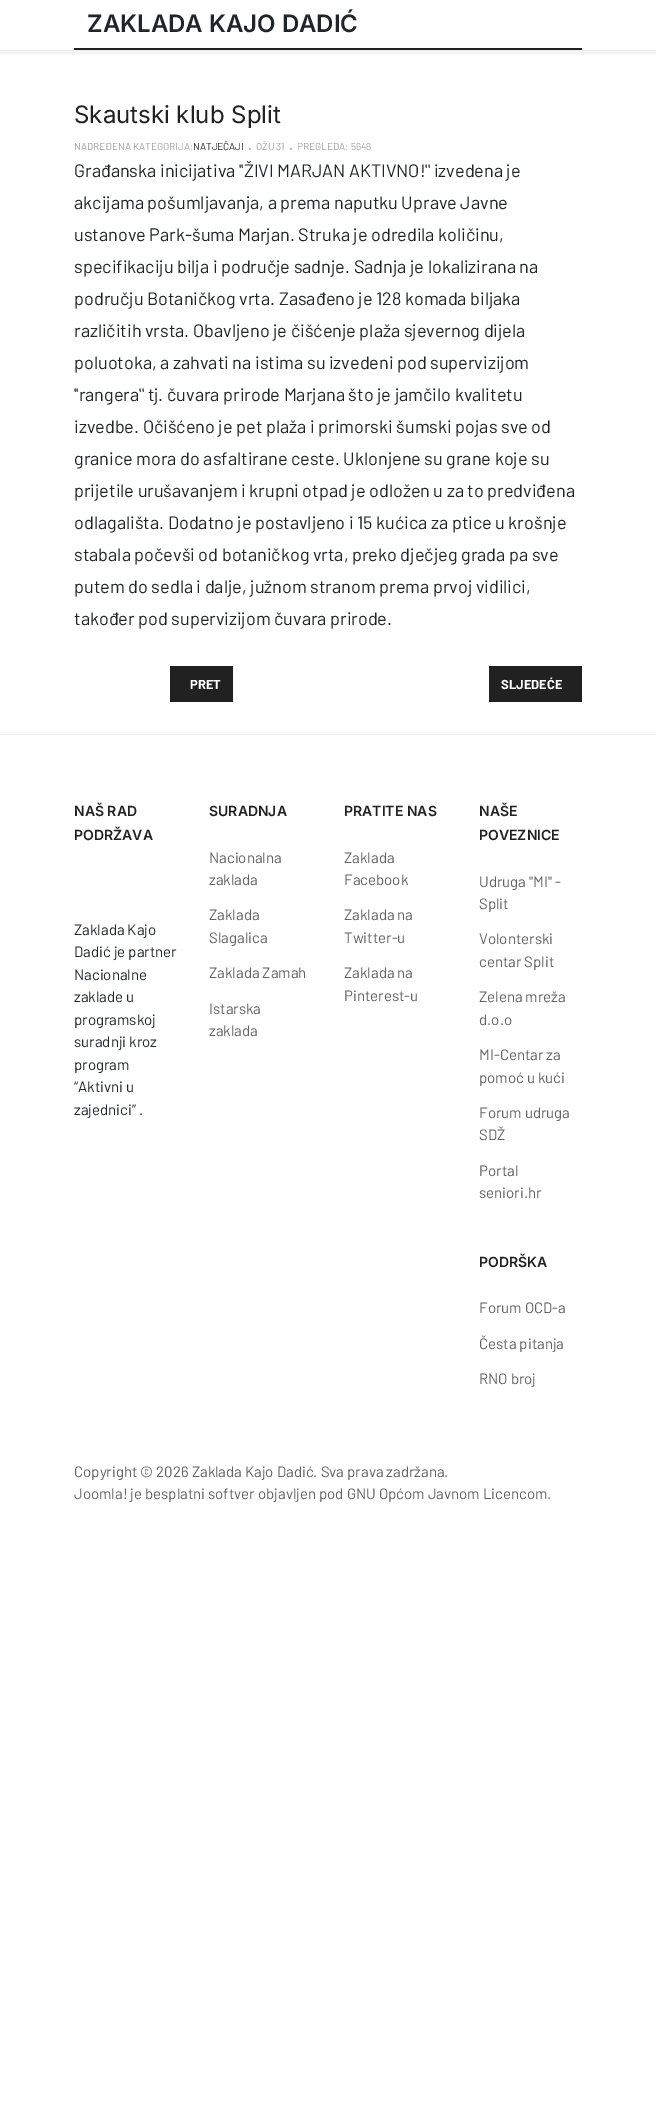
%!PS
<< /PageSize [656 2123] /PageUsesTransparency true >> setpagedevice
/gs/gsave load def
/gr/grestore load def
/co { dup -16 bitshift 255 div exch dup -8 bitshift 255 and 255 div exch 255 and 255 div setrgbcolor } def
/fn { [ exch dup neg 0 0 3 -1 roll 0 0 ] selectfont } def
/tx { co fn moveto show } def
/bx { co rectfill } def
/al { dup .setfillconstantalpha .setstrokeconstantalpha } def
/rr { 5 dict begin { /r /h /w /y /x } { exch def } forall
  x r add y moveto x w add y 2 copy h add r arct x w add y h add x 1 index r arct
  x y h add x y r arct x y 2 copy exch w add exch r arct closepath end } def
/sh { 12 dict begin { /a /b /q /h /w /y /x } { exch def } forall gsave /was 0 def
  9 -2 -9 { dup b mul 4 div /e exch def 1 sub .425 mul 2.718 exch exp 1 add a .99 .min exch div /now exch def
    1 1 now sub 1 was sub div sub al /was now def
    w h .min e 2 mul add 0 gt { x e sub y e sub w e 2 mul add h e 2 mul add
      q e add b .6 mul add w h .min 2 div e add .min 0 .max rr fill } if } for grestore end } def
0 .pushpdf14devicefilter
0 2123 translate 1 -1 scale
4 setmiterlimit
0 0 656 2123 16#FFFFFF bx
gs
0 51 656 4 rectclip
16#000000 co
0 3 656 51 0 2.5 .05 sh
gr
0 50 656 1 16#EEEEEE bx
74 48 508 2 16#212121 bx
170 666 63 36 16#212121 bx
489 666 93 36 16#212121 bx
0 734 656 1 16#EEEEEE bx
(ZAKLADA KAJO DADIĆ) 87 32 /Inter-SemiBold 24 16#212529 tx
(Skautski klub Split) 74 123 /Inter-Regular 24 16#212121 tx
(NADREĐENA KATEGORIJA:) 74 150 /Barlow-Regular 10 16#9E9E9E tx
(NATJEČAJI) 193 150 /Barlow-Regular 10 16#212121 tx
(.) 248 150 /Barlow-Bold 15 16#ADB5BD tx
(OŽU 31) 256 150 /Barlow-Regular 10 16#9E9E9E tx
(.) 289 150 /Barlow-Bold 15 16#ADB5BD tx
(PREGLEDA: 5646) 297 150 /Barlow-Regular 10 16#9E9E9E tx
(Građanska inicijativa ''ŽIVI MARJAN AKTIVNO!'' izvedena je) 74 177 /Barlow-Regular 18 16#212529 tx
(akcijama pošumljavanja, a prema naputku Uprave Javne) 74 209 /Barlow-Regular 18 16#212529 tx
(ustanove Park-šuma Marjan. Struka je odredila količinu,) 74 241 /Barlow-Regular 18 16#212529 tx
(specifikaciju bilja i područje sadnje. Sadnja je lokalizirana na) 74 273 /Barlow-Regular 18 16#212529 tx
(području Botaničkog vrta. Zasađeno je 128 komada biljaka) 74 305 /Barlow-Regular 18 16#212529 tx
(različitih vrsta. Obavljeno je čišćenje plaža sjevernog dijela) 74 337 /Barlow-Regular 18 16#212529 tx
(poluotoka, a zahvati na istima su izvedeni pod supervizijom) 74 369 /Barlow-Regular 18 16#212529 tx
(''rangera'' tj. čuvara prirode Marjana što je jamčilo kvalitetu) 74 401 /Barlow-Regular 18 16#212529 tx
(izvedbe. Očišćeno je pet plaža i primorski šumski pojas sve od) 74 433 /Barlow-Regular 18 16#212529 tx
(granice mora do asfaltirane ceste. Uklonjene su grane koje su) 74 465 /Barlow-Regular 18 16#212529 tx
(prijetile urušavanjem i krupni otpad je odložen u za to predviđena) 74 497 /Barlow-Regular 18 16#212529 tx
(odlagališta. Dodatno je postavljeno i 15 kućica za ptice u krošnje) 74 529 /Barlow-Regular 18 16#212529 tx
(stabala počevši od botaničkog vrta, preko dječjeg grada pa sve) 74 561 /Barlow-Regular 18 16#212529 tx
(putem do sedla i dalje, južnom stranom prema prvoj vidilici,) 74 593 /Barlow-Regular 18 16#212529 tx
(također pod supervizijom čuvara prirode.) 74 625 /Barlow-Regular 18 16#212529 tx
(PRET) 190 689 /Barlow-Bold 13 16#FFFFFF tx
(SLJEDEĆE) 501 689 /Barlow-Bold 13 16#FFFFFF tx
(NAŠ RAD) 74 816 /Inter-SemiBold 14 16#212121 tx
(PODRŽAVA) 74 840 /Inter-SemiBold 14 16#212121 tx
(Zaklada Kajo) 74 935 /Barlow-Regular 15 16#212529 tx
(Dadić je partner) 74 957 /Barlow-Regular 15 16#212529 tx
(Nacionalne) 74 980 /Barlow-Regular 15 16#212529 tx
(zaklade u) 74 1002 /Barlow-Regular 15 16#212529 tx
(programskoj) 74 1025 /Barlow-Regular 15 16#212529 tx
(suradnji kroz) 74 1047 /Barlow-Regular 15 16#212529 tx
(program) 74 1070 /Barlow-Regular 15 16#212529 tx
(“Aktivni u) 74 1092 /Barlow-Regular 15 16#212529 tx
(zajednici” .) 74 1115 /Barlow-Regular 15 16#212529 tx
(SURADNJA) 209 816 /Inter-SemiBold 14 16#212121 tx
(Nacionalna) 209 863 /Barlow-Regular 15 16#616161 tx
(zaklada) 209 885 /Barlow-Regular 15 16#616161 tx
(Zaklada) 209 920 /Barlow-Regular 15 16#616161 tx
(Slagalica) 209 943 /Barlow-Regular 15 16#616161 tx
(Zaklada Zamah) 209 978 /Barlow-Regular 15 16#616161 tx
(Istarska) 209 1014 /Barlow-Regular 15 16#616161 tx
(zaklada) 209 1036 /Barlow-Regular 15 16#616161 tx
(PRATITE NAS) 344 816 /Inter-SemiBold 14 16#212121 tx
(Zaklada) 344 863 /Barlow-Regular 15 16#616161 tx
(Facebook) 344 885 /Barlow-Regular 15 16#616161 tx
(Zaklada na) 344 920 /Barlow-Regular 15 16#616161 tx
(Twitter-u) 344 943 /Barlow-Regular 15 16#616161 tx
(Zaklada na) 344 978 /Barlow-Regular 15 16#616161 tx
(Pinterest-u) 344 1001 /Barlow-Regular 15 16#616161 tx
(NAŠE) 479 816 /Inter-SemiBold 14 16#212121 tx
(POVEZNICE) 479 840 /Inter-SemiBold 14 16#212121 tx
(Udruga "MI" -) 479 887 /Barlow-Regular 15 16#616161 tx
(Split) 479 909 /Barlow-Regular 15 16#616161 tx
(Volonterski) 479 944 /Barlow-Regular 15 16#616161 tx
(centar Split) 479 967 /Barlow-Regular 15 16#616161 tx
(Zelena mreža) 479 1002 /Barlow-Regular 15 16#616161 tx
(d.o.o) 479 1025 /Barlow-Regular 15 16#616161 tx
(MI-Centar za) 479 1060 /Barlow-Regular 15 16#616161 tx
(pomoć u kući) 479 1083 /Barlow-Regular 15 16#616161 tx
(Forum udruga) 479 1118 /Barlow-Regular 15 16#616161 tx
(SDŽ) 479 1140 /Barlow-Regular 15 16#616161 tx
(Portal) 479 1176 /Barlow-Regular 15 16#616161 tx
(seniori.hr) 479 1198 /Barlow-Regular 15 16#616161 tx
(PODRŠKA) 479 1267 /Inter-SemiBold 14 16#212121 tx
(Forum OCD-a) 479 1313 /Barlow-Regular 15 16#616161 tx
(Česta pitanja) 479 1349 /Barlow-Regular 15 16#616161 tx
(RNO broj) 479 1384 /Barlow-Regular 15 16#616161 tx
(Copyright © 2026 Zaklada Kajo Dadić. Sva prava zadržana.) 74 1477 /Barlow-Regular 15 16#616161 tx
(Joomla! je besplatni softver objavljen pod GNU Općom Javnom Licencom.) 74 1499 /Barlow-Regular 15 16#616161 tx
.poppdf14devicefilter showpage
